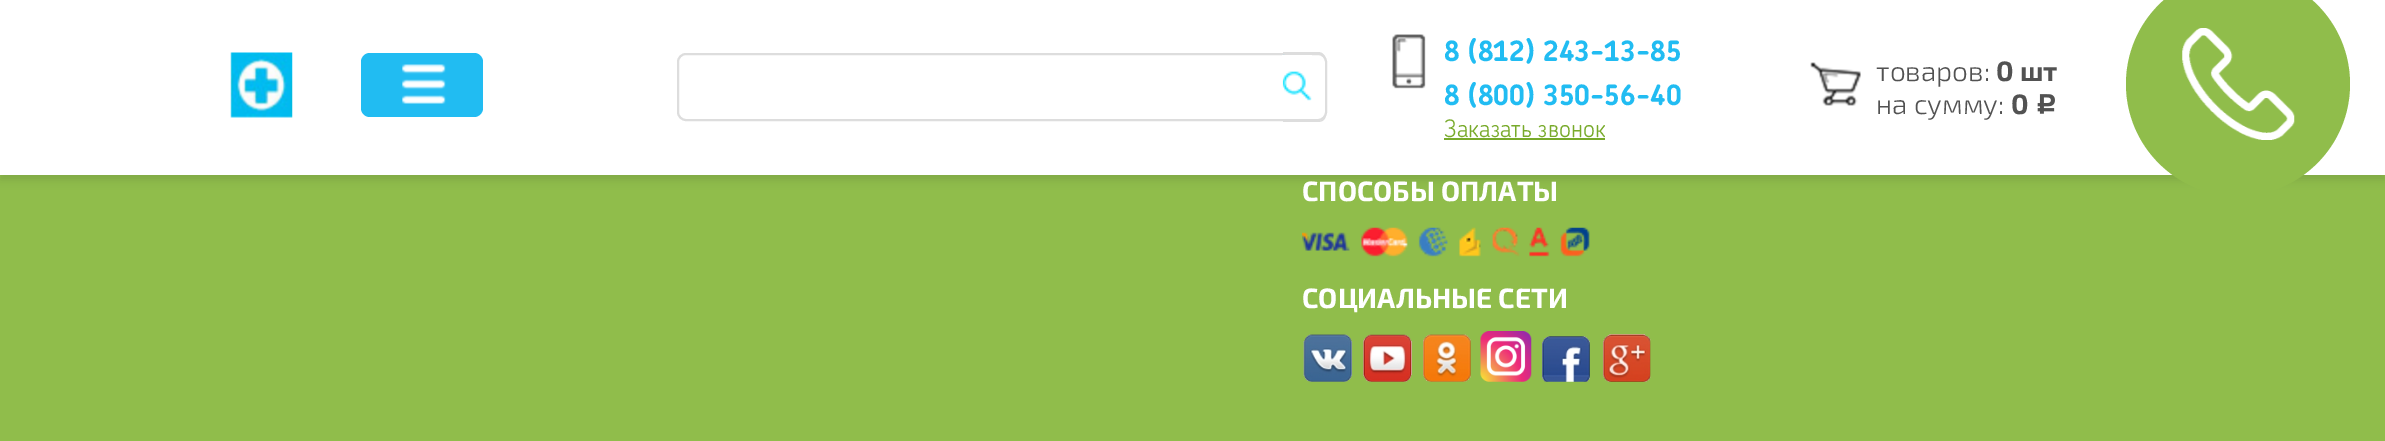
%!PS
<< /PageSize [2385 441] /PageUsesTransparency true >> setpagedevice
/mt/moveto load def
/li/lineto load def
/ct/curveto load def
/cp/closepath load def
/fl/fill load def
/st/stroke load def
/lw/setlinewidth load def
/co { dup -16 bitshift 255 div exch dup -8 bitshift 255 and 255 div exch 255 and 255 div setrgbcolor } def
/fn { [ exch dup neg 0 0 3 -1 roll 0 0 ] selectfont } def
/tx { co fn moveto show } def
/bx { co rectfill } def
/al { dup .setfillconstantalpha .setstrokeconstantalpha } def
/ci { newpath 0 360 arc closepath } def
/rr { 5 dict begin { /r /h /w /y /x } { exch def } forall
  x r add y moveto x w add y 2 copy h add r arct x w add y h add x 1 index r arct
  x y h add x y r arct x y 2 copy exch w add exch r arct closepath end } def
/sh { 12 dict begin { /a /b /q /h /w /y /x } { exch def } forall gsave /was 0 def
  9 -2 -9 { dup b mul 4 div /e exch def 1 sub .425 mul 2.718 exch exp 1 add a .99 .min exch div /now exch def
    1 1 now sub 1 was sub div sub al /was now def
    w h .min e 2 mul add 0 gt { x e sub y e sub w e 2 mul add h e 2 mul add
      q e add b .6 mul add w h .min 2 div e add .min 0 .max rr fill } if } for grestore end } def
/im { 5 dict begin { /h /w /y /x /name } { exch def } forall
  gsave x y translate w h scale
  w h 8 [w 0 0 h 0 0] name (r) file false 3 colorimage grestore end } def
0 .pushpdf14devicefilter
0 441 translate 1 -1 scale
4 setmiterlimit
0 0 2385 441 16#90BD4B bx
16#000000 co
0 5 2385 175 0 4.5 .1 sh
0 0 2385 175 16#FFFFFF bx
(media/1.raw) 230 52 63 66 im
16#21BCF2 co
361 53 122 64 9 rr fl
(media/2.raw) 402 64 44 40 im
16#DDDDDD co
2 lw
678 54 648 66 8 rr st
(media/3.raw) 1282 54 30 47 im
1283 52 mt 1318 52 li 1323 52 1326 56 1326 61 ct 1326 114 li 1326 119 1323 122 1318 122 ct 1283 122 li cp 1283 54 mt 1318 54 li 1322 54 1325 57 1325 61 ct 1325 114 li 1325 118 1322 121 1318 121 ct 1283 121 li cp eofill
(media/4.raw) 1392 34 34 55 im
(media/5.raw) 1392 34 33 54 im
1444 138 161 2 16#78AA2B bx
(media/6.raw) 1810 62 51 44 im
(media/7.raw) 2037 94 18 20 im
16#90BD4B co
2238 84 112 ci fl
(media/8.raw) 2182 28 113 112 im
(media/9.raw) 1302 227 288 30 im
(media/10.raw) 1303 334 50 48 im
(media/11.raw) 1363 334 49 48 im
(media/12.raw) 1423 334 48 48 im
(media/13.raw) 1480 331 52 51 im
(media/14.raw) 1542 336 48 46 im
(media/15.raw) 1602 334 49 48 im
(8 \(812\) 243-13-85) 1444 61 /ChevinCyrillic-Bold 28 16#21BCF2 tx
(8 \(800\) 350-56-40) 1444 105 /ChevinCyrillic-Bold 28 16#21BCF2 tx
(Заказать звонок) 1444 137 /ChevinCyrillic-Light 24 16#78AA2B tx
(товаров:) 1876 81 /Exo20-Light 28 16#525252 tx
(0 шт) 1996 81 /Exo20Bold-Bold 28 16#525252 tx
(на сумму:) 1876 114 /Exo20-Light 28 16#525252 tx
(0) 2011 114 /Exo20Bold-Bold 28 16#525252 tx
(СПОСОБЫ ОПЛАТЫ) 1302 201 /Exo20Bold-Bold 28 16#FFFFFF tx
(СОЦИАЛЬНЫЕ СЕТИ) 1302 308 /Exo20Bold-Bold 28 16#FFFFFF tx
.poppdf14devicefilter showpage
